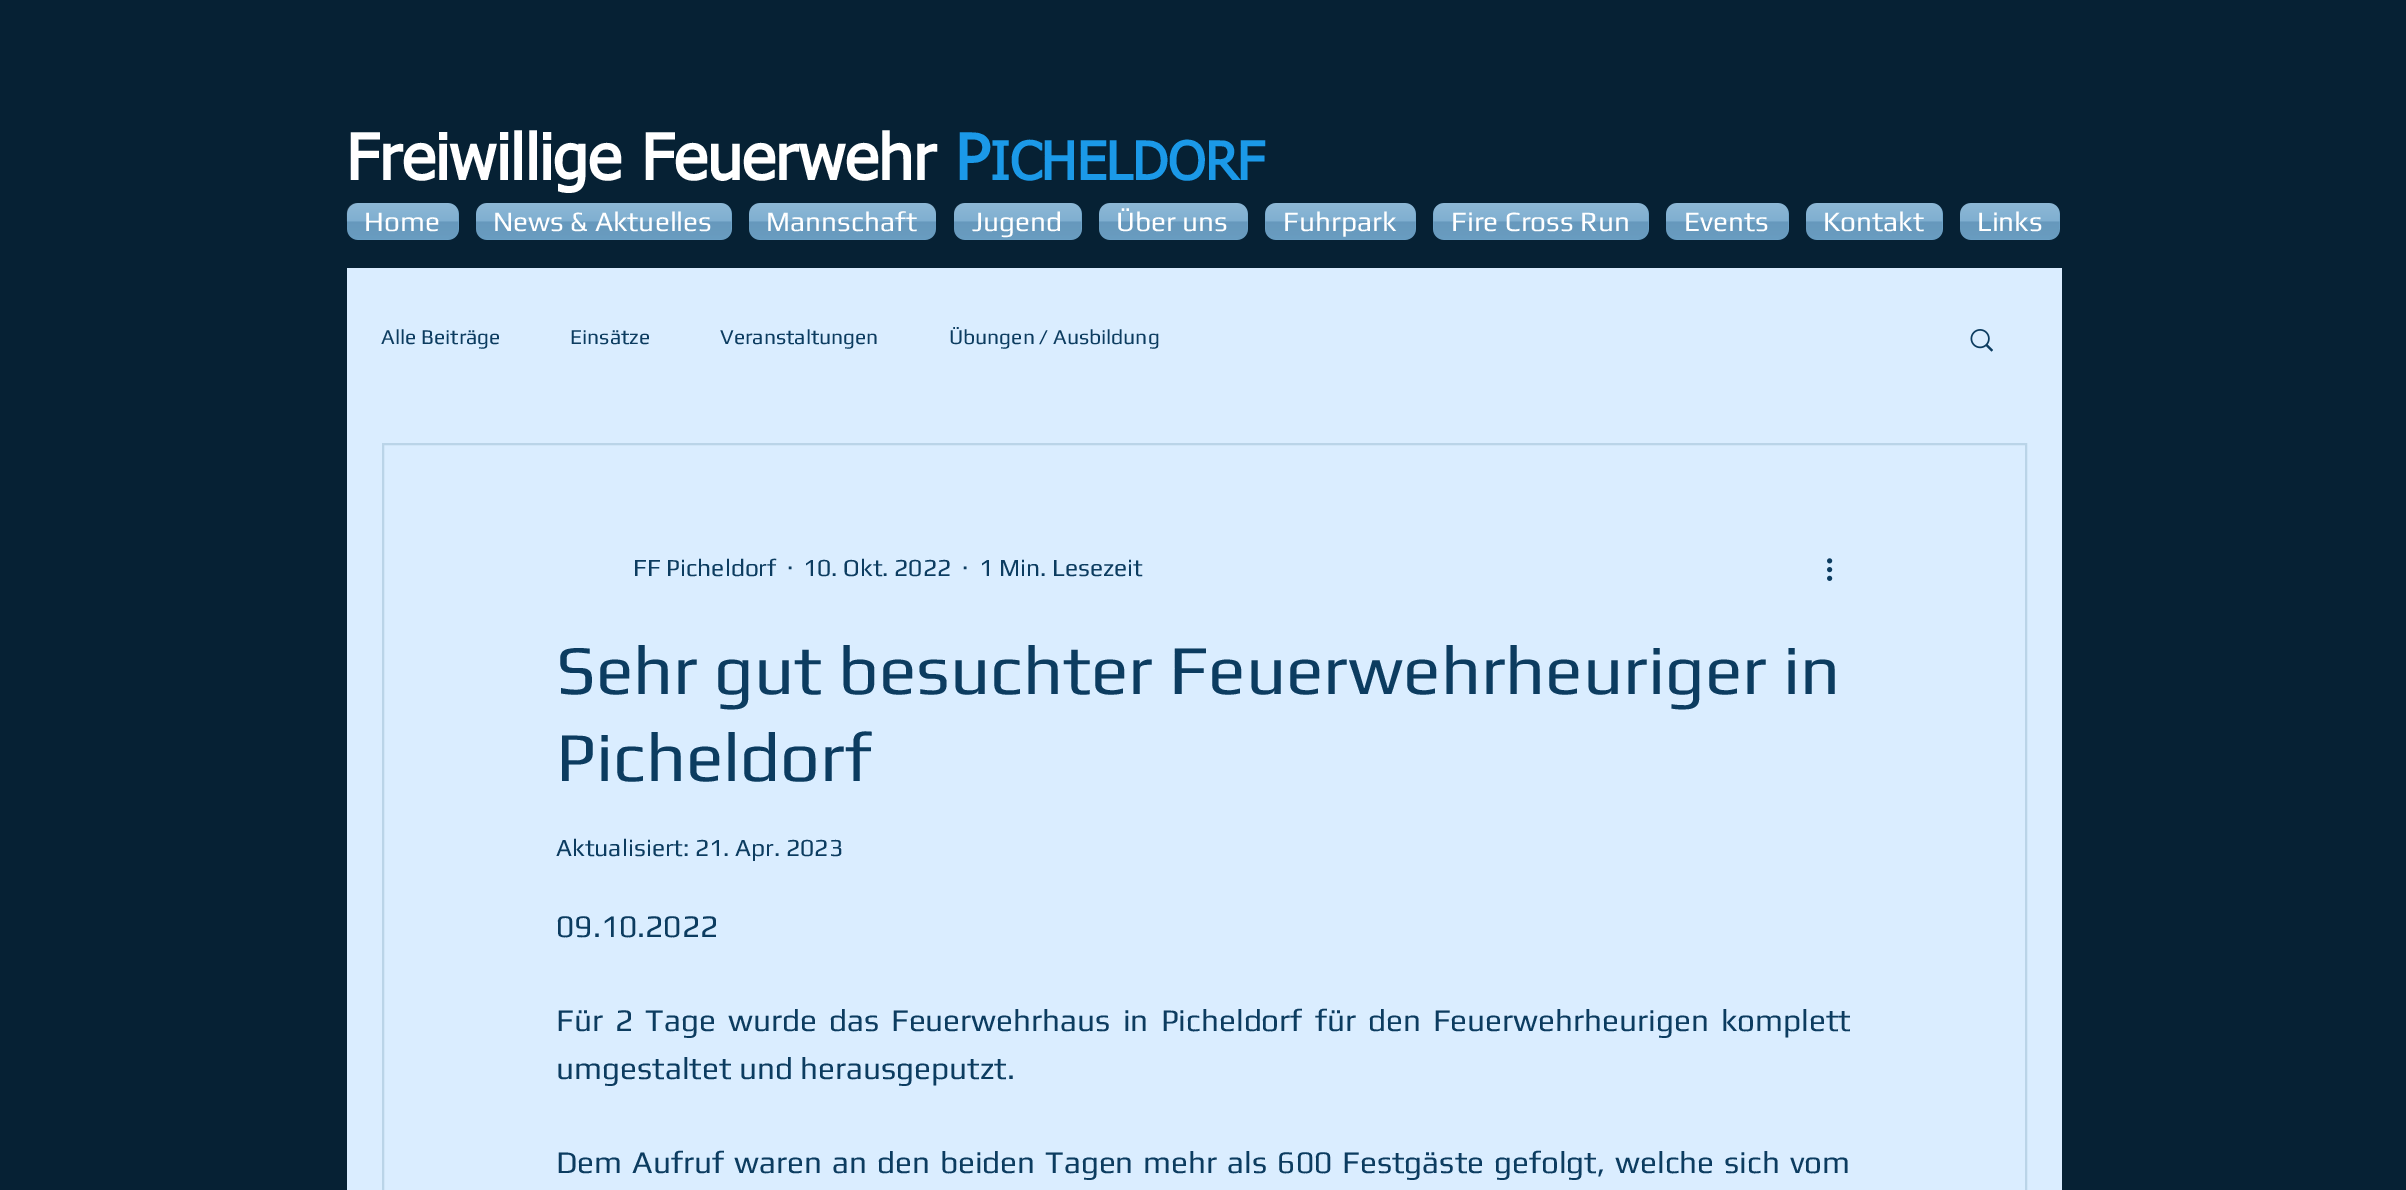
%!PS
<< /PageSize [2406 1190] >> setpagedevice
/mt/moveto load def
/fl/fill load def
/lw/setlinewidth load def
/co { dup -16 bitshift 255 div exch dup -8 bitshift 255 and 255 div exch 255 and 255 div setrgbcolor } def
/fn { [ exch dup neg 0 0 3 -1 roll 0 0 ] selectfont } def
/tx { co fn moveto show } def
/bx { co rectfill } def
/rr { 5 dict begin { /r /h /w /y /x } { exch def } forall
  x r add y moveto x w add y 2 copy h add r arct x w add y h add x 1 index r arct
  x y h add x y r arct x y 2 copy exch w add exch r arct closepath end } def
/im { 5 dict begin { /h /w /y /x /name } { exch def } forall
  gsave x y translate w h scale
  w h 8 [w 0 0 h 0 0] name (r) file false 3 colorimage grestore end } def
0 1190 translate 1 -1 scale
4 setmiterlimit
0 0 2406 1190 16#062134 bx
16#6EA4CA co
347 203 112 37 11 rr fl
(media/1.raw) 346 203 113 37 im
476 203 256 37 11 rr fl
(media/2.raw) 476 203 256 37 im
749 203 187 37 11 rr fl
(media/3.raw) 749 203 187 37 im
954 203 128 37 11 rr fl
(media/4.raw) 954 203 128 37 im
1099 203 149 37 11 rr fl
(media/5.raw) 1099 203 149 37 im
1265 203 151 37 11 rr fl
(media/6.raw) 1265 203 151 37 im
1433 203 216 37 11 rr fl
(media/7.raw) 1433 203 216 37 im
1666 203 123 37 11 rr fl
(media/8.raw) 1666 203 123 37 im
1806 203 137 37 11 rr fl
(media/9.raw) 1806 203 137 37 im
1960 203 100 37 11 rr fl
(media/10.raw) 1960 203 100 37 im
347 268 1715 922 16#DAEDFF bx
(media/11.raw) 1970 329 23 23 im
16#BAD4E8 co
2 lw
383 444 1643 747 rectstroke
(media/12.raw) 1827 558 6 23 im
(Freiwillige Feuerwehr) 346 180 /tahoma-Bold 63 16#FFFFFF tx
(P) 955 180 /tahoma-Bold 63 16#1B99E8 tx
(ICHELDORF) 990 180 /tahoma-Bold 52.5 16#1B99E8 tx
(Home) 364 231 /Play-Regular 28 16#FFFFFF tx
(News & Aktuelles) 493 231 /Play-Regular 28 16#FFFFFF tx
(Mannschaft) 766 231 /Play-Regular 28 16#FFFFFF tx
(Jugend) 972 231 /Play-Regular 28 16#FFFFFF tx
(Über uns) 1116 231 /Play-Regular 28 16#FFFFFF tx
(Fuhrpark) 1283 231 /Play-Regular 28 16#FFFFFF tx
(Fire Cross Run) 1451 231 /Play-Regular 28 16#FFFFFF tx
(Events) 1684 231 /Play-Regular 28 16#FFFFFF tx
(Kontakt) 1823 231 /Play-Regular 28 16#FFFFFF tx
(Links) 1977 231 /Play-Regular 28 16#FFFFFF tx
(Alle Beiträge) 381 344 /Play-Regular 21 16#0C3C60 tx
(Einsätze) 570 344 /Play-Regular 21 16#0C3C60 tx
(Veranstaltungen) 720 344 /Play-Regular 21 16#0C3C60 tx
(Übungen / Ausbildung) 949 344 /Play-Regular 21 16#0C3C60 tx
(FF Picheldorf) 633 576 /Play-Regular 24.5 16#0C3C60 tx
(·) 787 576 /Play-Regular 24.5 16#0C3C60 tx
(10. Okt. 2022) 803 576 /Play-Regular 24.5 16#0C3C60 tx
(·) 962 576 /Play-Regular 24.5 16#0C3C60 tx
(1 Min. Lesezeit) 979 576 /Play-Regular 24.5 16#0C3C60 tx
(Sehr gut besuchter Feuerwehrheuriger in) 556 694 /Play-Regular 70 16#0C3C60 tx
(Picheldorf) 556 781 /Play-Regular 70 16#0C3C60 tx
(Aktualisiert: 21. Apr. 2023) 556 856 /Play-Regular 24.5 16#0C3C60 tx
(09.10.2022) 556 937 /Play-Regular 31.5 16#0C3C60 tx
556 1031 mt 4.9 0 32 (Für 2 Tage wurde das Feuerwehrhaus in Picheldorf für den Feuerwehrheurigen komplett) widthshow
(umgestaltet und herausgeputzt.) 556 1079 /Play-Regular 31.5 16#0C3C60 tx
556 1173 mt 2.75 0 32 (Dem Aufruf waren an den beiden Tagen mehr als 600 Festgäste gefolgt, welche sich vom) widthshow
showpage
